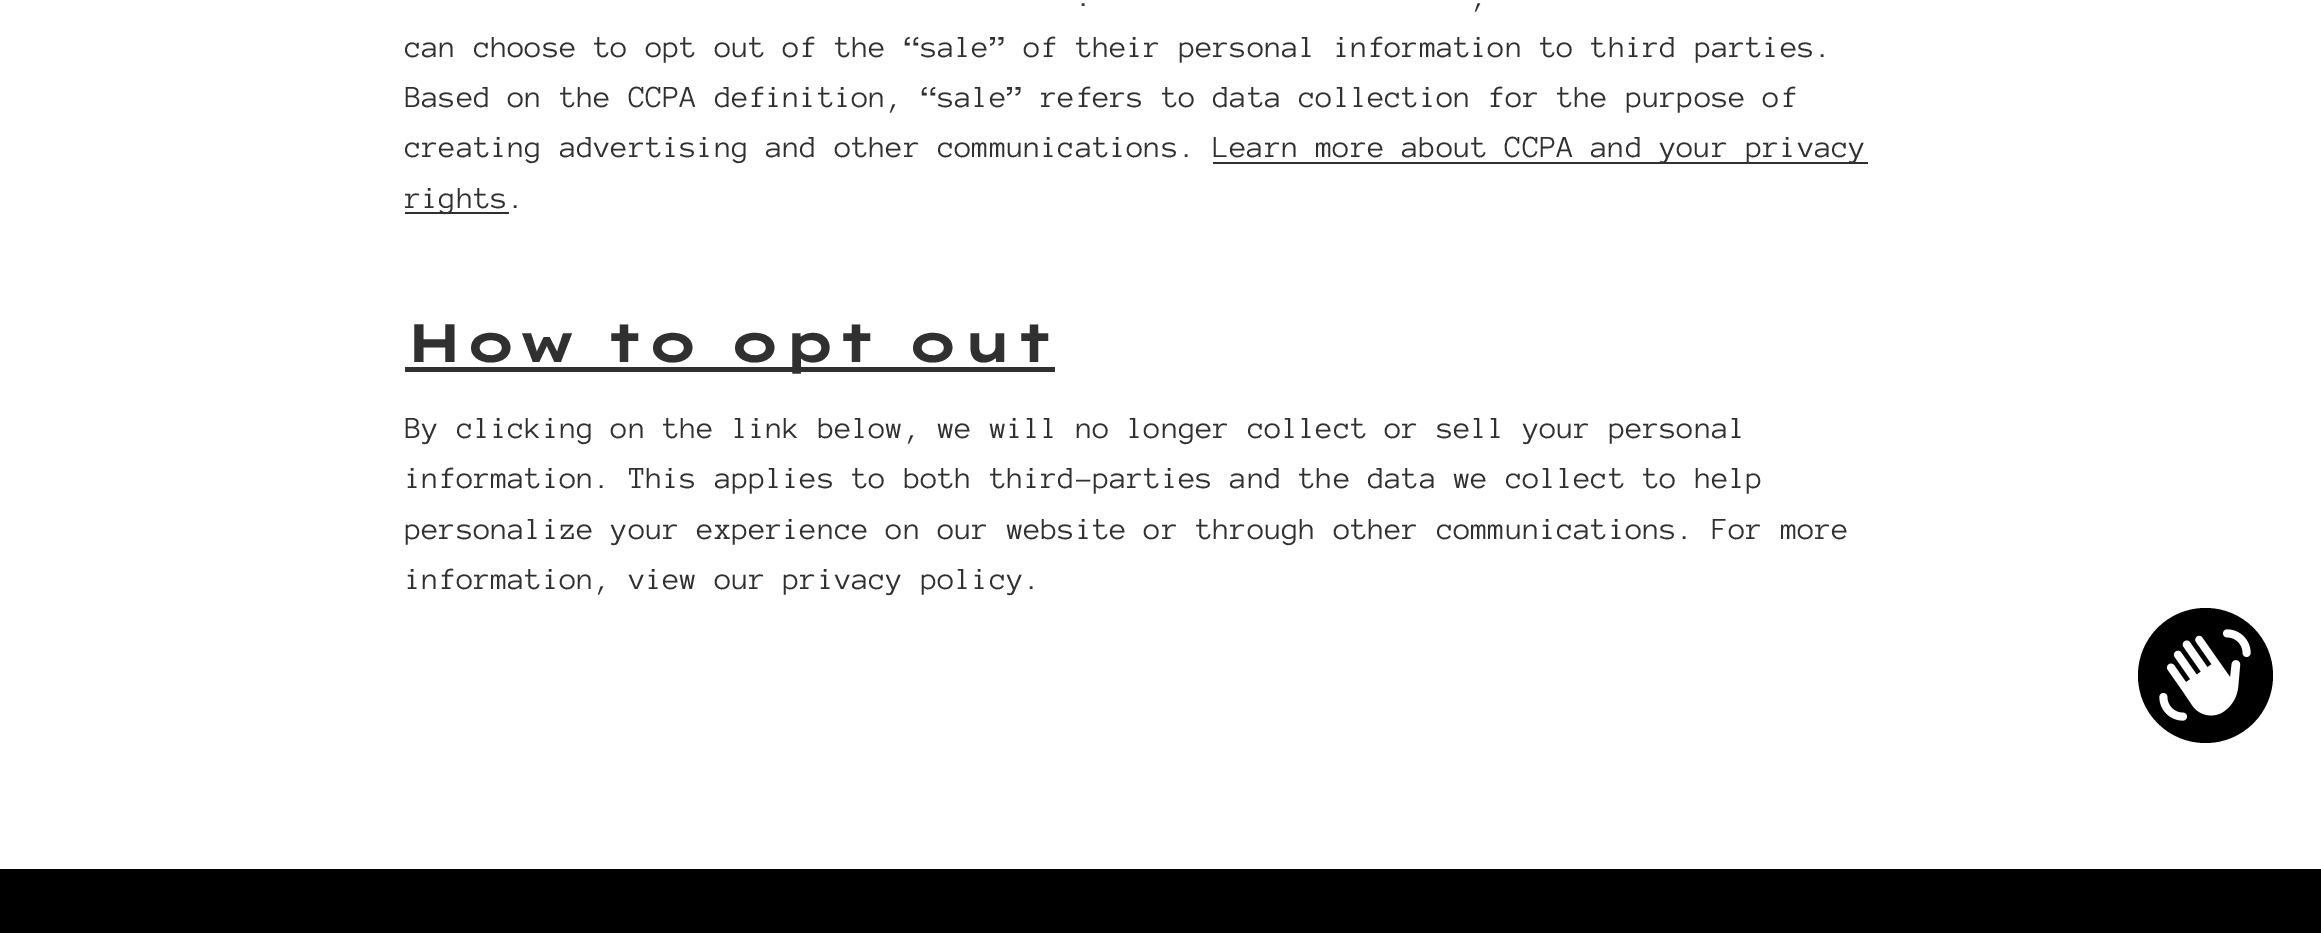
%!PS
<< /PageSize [2321 933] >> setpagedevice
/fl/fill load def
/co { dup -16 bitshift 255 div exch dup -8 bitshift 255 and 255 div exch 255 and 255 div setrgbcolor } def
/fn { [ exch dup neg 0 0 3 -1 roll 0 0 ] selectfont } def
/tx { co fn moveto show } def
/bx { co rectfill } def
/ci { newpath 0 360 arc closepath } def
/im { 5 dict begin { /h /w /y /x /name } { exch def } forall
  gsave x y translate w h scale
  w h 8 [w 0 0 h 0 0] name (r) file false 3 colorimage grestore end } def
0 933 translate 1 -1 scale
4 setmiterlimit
0 0 2321 933 16#FFFFFF bx
1213 162 655 2 16#303030 bx
405 212 104 2 16#303030 bx
405 367 650 5 16#303030 bx
16#000000 co
2205.5 675.5 67.5 ci fl
(media/1.raw) 2159 629 92 92 im
0 869 2321 64 16#000000 bx
(.) 1076 6 /AnonymousPro-Regular 31.5 16#303030 tx
(,) 1471 6 /AnonymousPro-Regular 31.5 16#303030 tx
(can choose to opt out of the “sale” of their personal information to third parties.) 405 57 /AnonymousPro-Regular 31.5 16#303030 tx
(Based on the CCPA definition, “sale” refers to data collection for the purpose of) 405 107 /AnonymousPro-Regular 31.5 16#303030 tx
(creating advertising and other communications.) 405 157 /AnonymousPro-Regular 31.5 16#303030 tx
(Learn more about CCPA and your privacy) 1213 157 /AnonymousPro-Regular 31.5 16#303030 tx
(rights) 405 208 /AnonymousPro-Regular 31.5 16#303030 tx
(.) 508 208 /AnonymousPro-Regular 31.5 16#303030 tx
(How to opt out) 405 362 /LexendZetta-Bold 54 16#303030 tx
(By clicking on the link below, we will no longer collect or sell your personal) 405 438 /AnonymousPro-Regular 31.5 16#303030 tx
(information. This applies to both third-parties and the data we collect to help) 405 488 /AnonymousPro-Regular 31.5 16#303030 tx
(personalize your experience on our website or through other communications. For more) 405 539 /AnonymousPro-Regular 31.5 16#303030 tx
(information, view our privacy policy.) 405 589 /AnonymousPro-Regular 31.5 16#303030 tx
showpage
